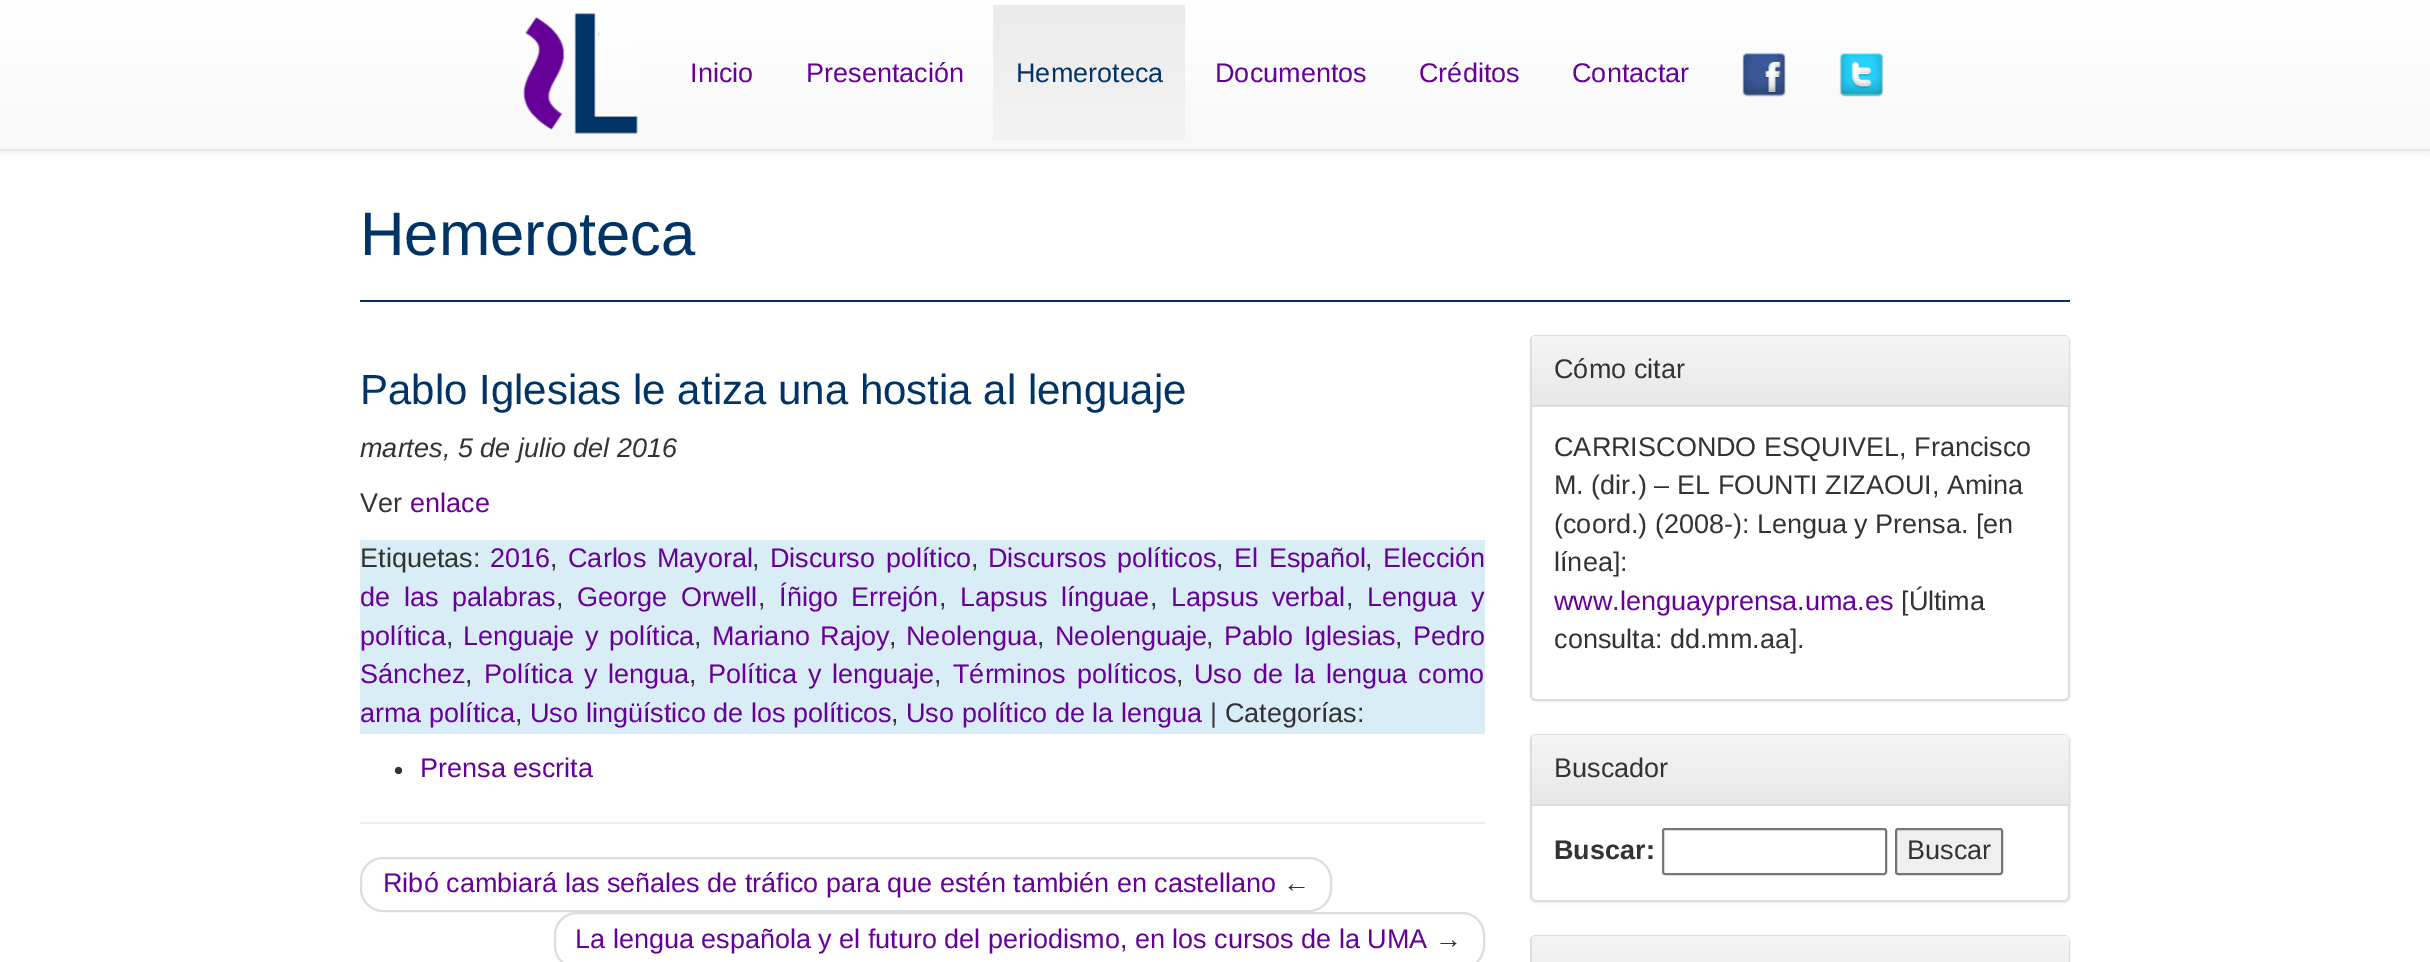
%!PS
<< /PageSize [2430 962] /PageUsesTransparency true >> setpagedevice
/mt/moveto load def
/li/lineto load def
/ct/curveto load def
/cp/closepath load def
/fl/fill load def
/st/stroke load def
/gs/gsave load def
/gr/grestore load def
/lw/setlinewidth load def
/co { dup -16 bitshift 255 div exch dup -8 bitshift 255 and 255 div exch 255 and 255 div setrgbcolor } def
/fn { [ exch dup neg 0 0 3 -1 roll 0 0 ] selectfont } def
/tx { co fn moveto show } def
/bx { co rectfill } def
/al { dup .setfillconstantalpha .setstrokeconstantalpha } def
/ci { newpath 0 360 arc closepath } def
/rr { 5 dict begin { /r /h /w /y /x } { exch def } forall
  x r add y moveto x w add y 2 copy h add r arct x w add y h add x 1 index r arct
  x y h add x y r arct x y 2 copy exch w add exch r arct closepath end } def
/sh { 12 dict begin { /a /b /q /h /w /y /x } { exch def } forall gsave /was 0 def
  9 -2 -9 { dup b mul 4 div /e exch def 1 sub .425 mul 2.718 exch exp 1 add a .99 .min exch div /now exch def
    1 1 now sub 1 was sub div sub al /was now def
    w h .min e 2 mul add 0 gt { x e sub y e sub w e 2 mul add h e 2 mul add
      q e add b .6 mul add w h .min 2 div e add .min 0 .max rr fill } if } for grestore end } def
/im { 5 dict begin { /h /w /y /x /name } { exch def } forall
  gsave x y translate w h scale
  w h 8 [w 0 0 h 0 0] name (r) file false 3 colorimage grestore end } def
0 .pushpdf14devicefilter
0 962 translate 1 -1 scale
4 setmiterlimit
0 0 2430 962 16#FFFFFF bx
16#000000 co
0 2 2430 150 0 4 .07 sh
gs 0 0 mt 2430 0 li 2430 149 li 0 149 li cp clip newpath
<< /ShadingType 2 /ColorSpace /DeviceRGB /Coords [1215 0 1215 149] /Extend [true true] /Function << /FunctionType 2 /Domain [0 1] /C0 [1 1 1] /C1 [.973 .973 .973] /N 1 >> >> shfill gr
0 149 2430 2 16#E7E7E7 bx
(media/1.raw) 523 13 115 121 im
gs 993 5 mt 1185 5 li 1185 140 li 993 140 li cp clip newpath
<< /ShadingType 2 /ColorSpace /DeviceRGB /Coords [1089 4.5 1089 140] /Extend [true true] /Function << /FunctionType 2 /Domain [0 1] /C0 [.922 .922 .922] /C1 [.953 .953 .953] /N 1 >> >> shfill gr
(media/2.raw) 1742 53 44 44 im
(media/3.raw) 1839 53 45 44 im
360 300 1710 2 16#003466 bx
360 540 1125 194 16#D9EDF7 bx
16#333333 co
398.5 770.5 3.5 ci fl
360 822 1125 2 16#EEEEEE bx
16#DDDDDD co
2 lw
361 858 970 53 22 rr st
555 913 929 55 22 rr st
16#000000 co
1530 336 540 366 6 1.5 .05 sh
16#FFFFFF co
1531 336 538 364 5 rr gs fl gr
16#DDDDDD co
st
gs 1537 336 mt 2064 336 li 2067 336 2069 338 2069 341 ct 2069 405 li 1532 405 li 1532 341 li 1532 338 1534 336 1537 336 ct cp clip newpath
<< /ShadingType 2 /ColorSpace /DeviceRGB /Coords [1800 336 1800 405] /Extend [true true] /Function << /FunctionType 2 /Domain [0 1] /C0 [.961 .961 .961] /C1 [.91 .91 .91] /N 1 >> >> shfill gr
1532 405 537 2 16#DDDDDD bx
16#000000 co
1530 735 540 168 6 1.5 .05 sh
16#FFFFFF co
1531 735 538 166 5 rr gs fl gr
16#DDDDDD co
st
gs 1537 735 mt 2064 735 li 2067 735 2069 737 2069 740 ct 2069 804 li 1532 804 li 1532 740 li 1532 737 1534 735 1537 735 ct cp clip newpath
<< /ShadingType 2 /ColorSpace /DeviceRGB /Coords [1800 735 1800 804] /Extend [true true] /Function << /FunctionType 2 /Domain [0 1] /C0 [.961 .961 .961] /C1 [.91 .91 .91] /N 1 >> >> shfill gr
1532 804 537 2 16#DDDDDD bx
16#767676 co
1663 829 223 45 2 rr st
16#EFEFEF co
1896 829 106 45 2 rr gs fl gr
16#767676 co
st
16#DDDDDD co
1531 936 538 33 5 rr st
gs 1537 936 mt 2064 936 li 2067 936 2069 938 2069 941 ct 2069 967 li 1532 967 li 1532 941 li 1532 938 1534 936 1537 936 ct cp clip newpath
<< /ShadingType 2 /ColorSpace /DeviceRGB /Coords [1800 936 1800 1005] /Extend [true true] /Function << /FunctionType 2 /Domain [0 1] /C0 [.961 .961 .961] /C1 [.91 .91 .91] /N 1 >> >> shfill gr
(Inicio) 690 82 /LiberationSans-Regular 27 16#670099 tx
(Presentación) 806 82 /LiberationSans-Regular 27 16#670099 tx
(Hemeroteca) 1016 82 /LiberationSans-Regular 27 16#003466 tx
(Documentos) 1215 82 /LiberationSans-Regular 27 16#670099 tx
(Créditos) 1419 82 /LiberationSans-Regular 27 16#670099 tx
(Contactar) 1572 82 /LiberationSans-Regular 27 16#670099 tx
(Hemeroteca) 360 255 /LiberationSans-Regular 61.5 16#003466 tx
(Pablo Iglesias le atiza una hostia al lenguaje) 360 404 /LiberationSans-Regular 42 16#003466 tx
(martes, 5 de julio del 2016) 360 457 /LiberationSans-Italic 27 16#333333 tx
(Ver) 360 512 /LiberationSans-Regular 27 16#333333 tx
(enlace) 410 512 /LiberationSans-Regular 27 16#670099 tx
(Etiquetas:) 360 567 /LiberationSans-Regular 27 16#333333 tx
(2016) 490 567 /LiberationSans-Regular 27 16#670099 tx
(,) 550 567 /LiberationSans-Regular 27 16#333333 tx
16#670099 co
568 567 mt 3 0 32 (Carlos Mayoral) widthshow
(,) 752 567 /LiberationSans-Regular 27 16#333333 tx
16#670099 co
770 567 mt 3 0 32 (Discurso político) widthshow
(,) 971 567 /LiberationSans-Regular 27 16#333333 tx
16#670099 co
988 567 mt 3 0 32 (Discursos políticos) widthshow
(,) 1216 567 /LiberationSans-Regular 27 16#333333 tx
16#670099 co
1234 567 mt 3 0 32 (El Español) widthshow
(,) 1365 567 /LiberationSans-Regular 27 16#333333 tx
(Elección) 1383 567 /LiberationSans-Regular 27 16#670099 tx
360 606 mt 6 0 32 (de las palabras) widthshow
(,) 556 606 /LiberationSans-Regular 27 16#333333 tx
16#670099 co
577 606 mt 6 0 32 (George Orwell) widthshow
(,) 758 606 /LiberationSans-Regular 27 16#333333 tx
16#670099 co
779 606 mt 6 0 32 (Íñigo Errejón) widthshow
(,) 939 606 /LiberationSans-Regular 27 16#333333 tx
16#670099 co
960 606 mt 6 0 32 (Lapsus línguae) widthshow
(,) 1150 606 /LiberationSans-Regular 27 16#333333 tx
16#670099 co
1171 606 mt 6 0 32 (Lapsus verbal) widthshow
(,) 1346 606 /LiberationSans-Regular 27 16#333333 tx
16#670099 co
1367 606 mt 6 0 32 (Lengua y) widthshow
(política) 360 645 /LiberationSans-Regular 27 16#670099 tx
(,) 446 645 /LiberationSans-Regular 27 16#333333 tx
16#670099 co
463 645 mt 3 0 32 (Lenguaje y política) widthshow
(,) 694 645 /LiberationSans-Regular 27 16#333333 tx
16#670099 co
712 645 mt 3 0 32 (Mariano Rajoy) widthshow
(,) 889 645 /LiberationSans-Regular 27 16#333333 tx
(Neolengua) 906 645 /LiberationSans-Regular 27 16#670099 tx
(,) 1037 645 /LiberationSans-Regular 27 16#333333 tx
(Neolenguaje) 1055 645 /LiberationSans-Regular 27 16#670099 tx
(,) 1206 645 /LiberationSans-Regular 27 16#333333 tx
16#670099 co
1224 645 mt 3 0 32 (Pablo Iglesias) widthshow
(,) 1395 645 /LiberationSans-Regular 27 16#333333 tx
(Pedro) 1413 645 /LiberationSans-Regular 27 16#670099 tx
(Sánchez) 360 683 /LiberationSans-Regular 27 16#670099 tx
(,) 465 683 /LiberationSans-Regular 27 16#333333 tx
16#670099 co
484 683 mt 3.5 0 32 (Política y lengua) widthshow
(,) 689 683 /LiberationSans-Regular 27 16#333333 tx
16#670099 co
708 683 mt 3.5 0 32 (Política y lenguaje) widthshow
(,) 934 683 /LiberationSans-Regular 27 16#333333 tx
16#670099 co
953 683 mt 4 0 32 (Términos políticos) widthshow
(,) 1176 683 /LiberationSans-Regular 27 16#333333 tx
16#670099 co
1194 683 mt 3.5 0 32 (Uso de la lengua como) widthshow
(arma política) 360 722 /LiberationSans-Regular 27 16#670099 tx
(,) 515 722 /LiberationSans-Regular 27 16#333333 tx
(Uso lingüístico de los políticos) 530 722 /LiberationSans-Regular 27 16#670099 tx
(,) 891 722 /LiberationSans-Regular 27 16#333333 tx
(Uso político de la lengua) 906 722 /LiberationSans-Regular 27 16#670099 tx
(| Categorías:) 1210 722 /LiberationSans-Regular 27 16#333333 tx
(Prensa escrita) 420 777 /LiberationSans-Regular 27 16#670099 tx
(Ribó cambiará las señales de tráfico para que estén también en castellano) 383 892 /LiberationSans-Regular 27 16#670099 tx
(←) 1283 892 /LiberationSans-Regular 27 16#333333 tx
(La lengua española y el futuro del periodismo, en los cursos de la UMA) 575 948 /LiberationSans-Regular 27 16#670099 tx
(→) 1435 948 /LiberationSans-Regular 27 16#333333 tx
(Cómo citar) 1554 378 /LiberationSans-Regular 27 16#333333 tx
(CARRISCONDO ESQUIVEL, Francisco) 1554 456 /LiberationSans-Regular 27 16#333333 tx
(M. \(dir.\) – EL FOUNTI ZIZAOUI, Amina) 1554 494 /LiberationSans-Regular 27 16#333333 tx
(\(coord.\) \(2008-\): Lengua y Prensa. [en) 1554 533 /LiberationSans-Regular 27 16#333333 tx
(línea]:) 1554 571 /LiberationSans-Regular 27 16#333333 tx
(www.lenguayprensa.uma.es) 1554 610 /LiberationSans-Regular 27 16#670099 tx
([Última) 1901 610 /LiberationSans-Regular 27 16#333333 tx
(consulta: dd.mm.aa].) 1554 648 /LiberationSans-Regular 27 16#333333 tx
(Buscador) 1554 777 /LiberationSans-Regular 27 16#333333 tx
(Buscar:) 1554 859 /LiberationSans-Bold 27 16#333333 tx
(Buscar) 1907 859 /LiberationSans-Regular 27 16#333333 tx
.poppdf14devicefilter showpage
